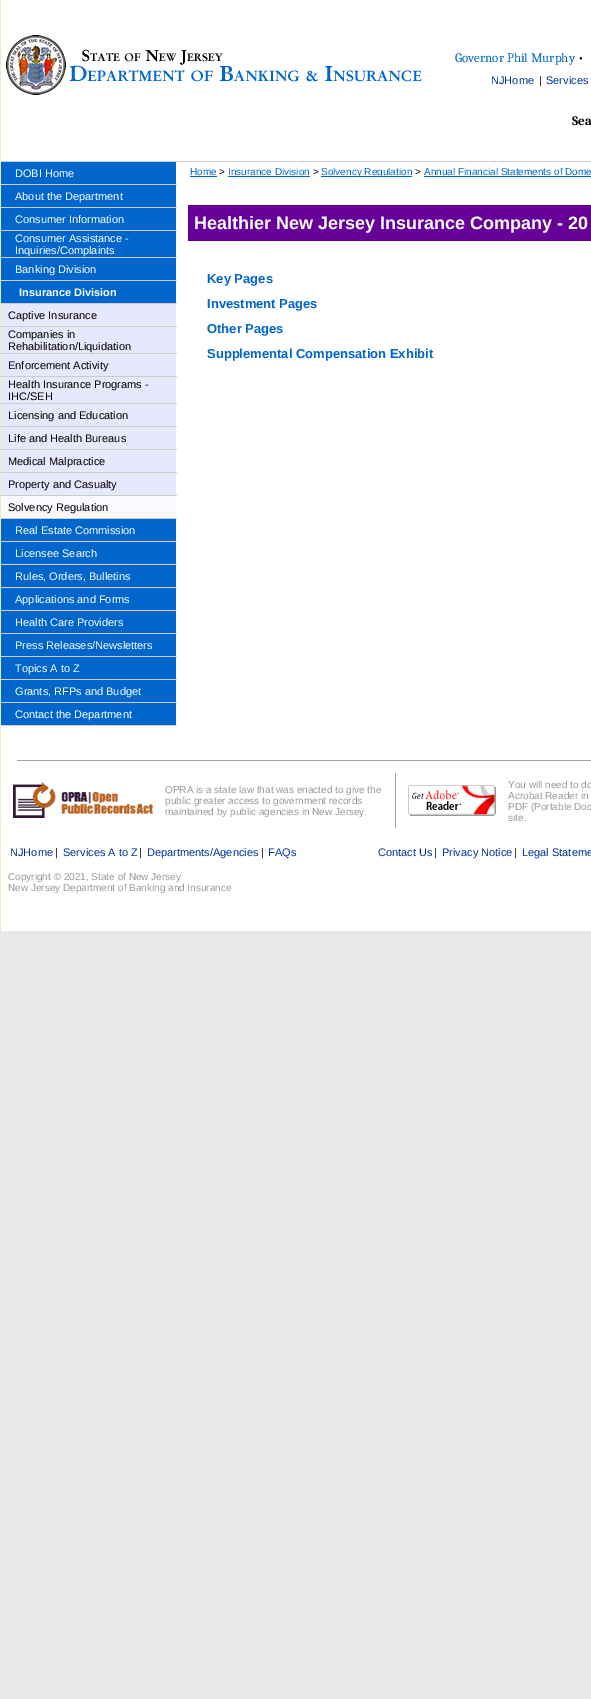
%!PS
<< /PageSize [591 1699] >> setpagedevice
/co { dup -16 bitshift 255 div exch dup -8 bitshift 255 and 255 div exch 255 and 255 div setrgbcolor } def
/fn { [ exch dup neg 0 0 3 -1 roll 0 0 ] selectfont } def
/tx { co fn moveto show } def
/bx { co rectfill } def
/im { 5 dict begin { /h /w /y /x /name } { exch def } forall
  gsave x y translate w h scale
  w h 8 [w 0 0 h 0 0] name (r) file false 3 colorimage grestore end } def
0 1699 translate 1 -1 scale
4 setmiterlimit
0 0 591 1699 16#E8E8E8 bx
1 0 590 931 16#FFFFFF bx
0 0 1 931 16#E3F0C1 bx
(media/1.raw) 6 35 60 60 im
(media/2.raw) 69 49 353 33 im
1 161 590 1 16#CCCCCC bx
1 162 175 22 16#0066CC bx
1 184 176 1 16#CCCCCC bx
1 185 175 22 16#0066CC bx
1 207 176 1 16#CCCCCC bx
1 208 175 22 16#0066CC bx
1 230 176 1 16#CCCCCC bx
1 231 175 26 16#0066CC bx
1 257 176 1 16#CCCCCC bx
1 258 175 22 16#0066CC bx
1 280 176 1 16#CCCCCC bx
1 281 175 22 16#0066CC bx
1 303 176 1 16#CCCCCC bx
1 304 6 192 16#E8E8FD bx
7 304 169 22 16#E8E8FD bx
1 326 176 1 16#CCCCCC bx
7 327 169 26 16#E8E8FD bx
1 353 176 1 16#CCCCCC bx
7 354 169 22 16#E8E8FD bx
1 376 176 1 16#CCCCCC bx
7 377 169 26 16#E8E8FD bx
1 403 176 1 16#CCCCCC bx
7 404 169 22 16#E8E8FD bx
1 426 176 1 16#CCCCCC bx
7 427 169 22 16#E8E8FD bx
1 449 176 1 16#CCCCCC bx
7 450 169 22 16#E8E8FD bx
1 472 176 1 16#CCCCCC bx
7 473 169 22 16#E8E8FD bx
1 495 176 1 16#CCCCCC bx
1 496 6 23 16#F9F9FF bx
7 496 169 22 16#F9F9FF bx
1 518 176 1 16#CCCCCC bx
1 519 175 22 16#0066CC bx
1 541 176 1 16#CCCCCC bx
1 542 175 22 16#0066CC bx
1 564 176 1 16#CCCCCC bx
1 565 175 22 16#0066CC bx
1 587 176 1 16#CCCCCC bx
1 588 175 22 16#0066CC bx
1 610 176 1 16#CCCCCC bx
1 611 175 22 16#0066CC bx
1 633 176 1 16#CCCCCC bx
1 634 175 22 16#0066CC bx
1 656 176 1 16#CCCCCC bx
1 657 175 22 16#0066CC bx
1 679 176 1 16#CCCCCC bx
1 680 175 22 16#0066CC bx
1 702 176 1 16#CCCCCC bx
1 703 175 22 16#0066CC bx
1 725 176 1 16#CCCCCC bx
190 176 27 1 16#0066CC bx
228 176 82 1 16#0066CC bx
321 176 91 1 16#0066CC bx
424 176 167 1 16#0066CC bx
188 205 403 36 16#660099 bx
17 760 574 1 16#A4A2A2 bx
(media/3.raw) 13 782 140 36 im
395 773 1 55 16#A4A2A2 bx
(media/4.raw) 408 785 88 31 im
(Governor Phil Murphy) 455 62 /Caladea-Regular 13 16#0066CC tx
(•) 578 62 /Caladea-Regular 13 16#000000 tx
(NJHome) 491 84 /LiberationSans-Regular 11 16#003399 tx
(|) 539 84 /LiberationSans-Regular 11 16#000000 tx
(Services) 546 84 /LiberationSans-Regular 11 16#003399 tx
(Sea) 572 125 /Caladea-Bold 13 16#000000 tx
(DOBI Home) 15 177 /LiberationSans-Regular 11 16#FFFFFF tx
(About the Department) 15 200 /LiberationSans-Regular 11 16#FFFFFF tx
(Consumer Information) 15 223 /LiberationSans-Regular 11 16#FFFFFF tx
(Consumer Assistance -) 15 242 /LiberationSans-Regular 11 16#FFFFFF tx
(Inquiries/Complaints) 15 254 /LiberationSans-Regular 11 16#FFFFFF tx
(Banking Division) 15 273 /LiberationSans-Regular 11 16#FFFFFF tx
(Insurance Division) 19 296 /LiberationSans-Bold 11 16#FFFFFF tx
(Captive Insurance) 8 319 /LiberationSans-Regular 11 16#000000 tx
(Companies in) 8 338 /LiberationSans-Regular 11 16#000000 tx
(Rehabilitation/Liquidation) 8 350 /LiberationSans-Regular 11 16#000000 tx
(Enforcement Activity) 8 369 /LiberationSans-Regular 11 16#000000 tx
(Health Insurance Programs -) 8 388 /LiberationSans-Regular 11 16#000000 tx
(IHC/SEH) 8 400 /LiberationSans-Regular 11 16#000000 tx
(Licensing and Education) 8 419 /LiberationSans-Regular 11 16#000000 tx
(Life and Health Bureaus) 8 442 /LiberationSans-Regular 11 16#000000 tx
(Medical Malpractice) 8 465 /LiberationSans-Regular 11 16#000000 tx
(Property and Casualty) 8 488 /LiberationSans-Regular 11 16#000000 tx
(Solvency Regulation) 8 511 /LiberationSans-Regular 11 16#000000 tx
(Real Estate Commission) 15 534 /LiberationSans-Regular 11 16#FFFFFF tx
(Licensee Search) 15 557 /LiberationSans-Regular 11 16#FFFFFF tx
(Rules, Orders, Bulletins) 15 580 /LiberationSans-Regular 11 16#FFFFFF tx
(Applications and Forms) 15 603 /LiberationSans-Regular 11 16#FFFFFF tx
(Health Care Providers) 15 626 /LiberationSans-Regular 11 16#FFFFFF tx
(Press Releases/Newsletters) 15 649 /LiberationSans-Regular 11 16#FFFFFF tx
(Topics A to Z) 15 672 /LiberationSans-Regular 11 16#FFFFFF tx
(Grants, RFPs and Budget) 15 695 /LiberationSans-Regular 11 16#FFFFFF tx
(Contact the Department) 15 718 /LiberationSans-Regular 11 16#FFFFFF tx
(Home) 190 175 /LiberationSans-Regular 10 16#0066CC tx
(>) 219 175 /LiberationSans-Regular 10 16#000000 tx
(Insurance Division) 228 175 /LiberationSans-Regular 10 16#0066CC tx
(>) 313 175 /LiberationSans-Regular 10 16#000000 tx
(Solvency Regulation) 321 175 /LiberationSans-Regular 10 16#0066CC tx
(>) 415 175 /LiberationSans-Regular 10 16#000000 tx
(Annual Financial Statements of Dome) 424 175 /LiberationSans-Regular 10 16#0066CC tx
(Healthier New Jersey Insurance Company - 20) 194 229 /LiberationSans-Bold 18 16#FFFFFF tx
(Key Pages) 207 283 /LiberationSans-Bold 13 16#0066CC tx
(Investment Pages) 207 308 /LiberationSans-Bold 13 16#0066CC tx
(Other Pages) 207 333 /LiberationSans-Bold 13 16#0066CC tx
(Supplemental Compensation Exhibit) 207 358 /LiberationSans-Bold 13 16#0066CC tx
(OPRA is a state law that was enacted to give the) 165 793 /LiberationSans-Regular 10 16#999999 tx
(public greater access to government records) 165 804 /LiberationSans-Regular 10 16#999999 tx
(maintained by public agencies in New Jersey.) 165 815 /LiberationSans-Regular 10 16#999999 tx
(You will need to do) 508 788 /LiberationSans-Regular 10 16#999999 tx
(Acrobat Reader in) 508 799 /LiberationSans-Regular 10 16#999999 tx
(PDF \(Portable Doc) 508 810 /LiberationSans-Regular 10 16#999999 tx
(site.) 508 821 /LiberationSans-Regular 10 16#999999 tx
(NJHome) 10 856 /LiberationSans-Regular 11 16#003399 tx
(|) 55 856 /LiberationSans-Regular 11 16#000000 tx
(Services A to Z) 63 856 /LiberationSans-Regular 11 16#003399 tx
(|) 139 856 /LiberationSans-Regular 11 16#000000 tx
(Departments/Agencies) 147 856 /LiberationSans-Regular 11 16#003399 tx
(|) 261 856 /LiberationSans-Regular 11 16#000000 tx
(FAQs) 268 856 /LiberationSans-Regular 11 16#003399 tx
(Contact Us) 378 856 /LiberationSans-Regular 11 16#003399 tx
(|) 434 856 /LiberationSans-Regular 11 16#000000 tx
(Privacy Notice) 442 856 /LiberationSans-Regular 11 16#003399 tx
(|) 514 856 /LiberationSans-Regular 11 16#000000 tx
(Legal Stateme) 522 856 /LiberationSans-Regular 11 16#003399 tx
(Copyright © 2021, State of New Jersey) 8 880 /LiberationSans-Regular 10 16#999999 tx
(New Jersey Department of Banking and Insurance) 8 891 /LiberationSans-Regular 10 16#999999 tx
showpage
